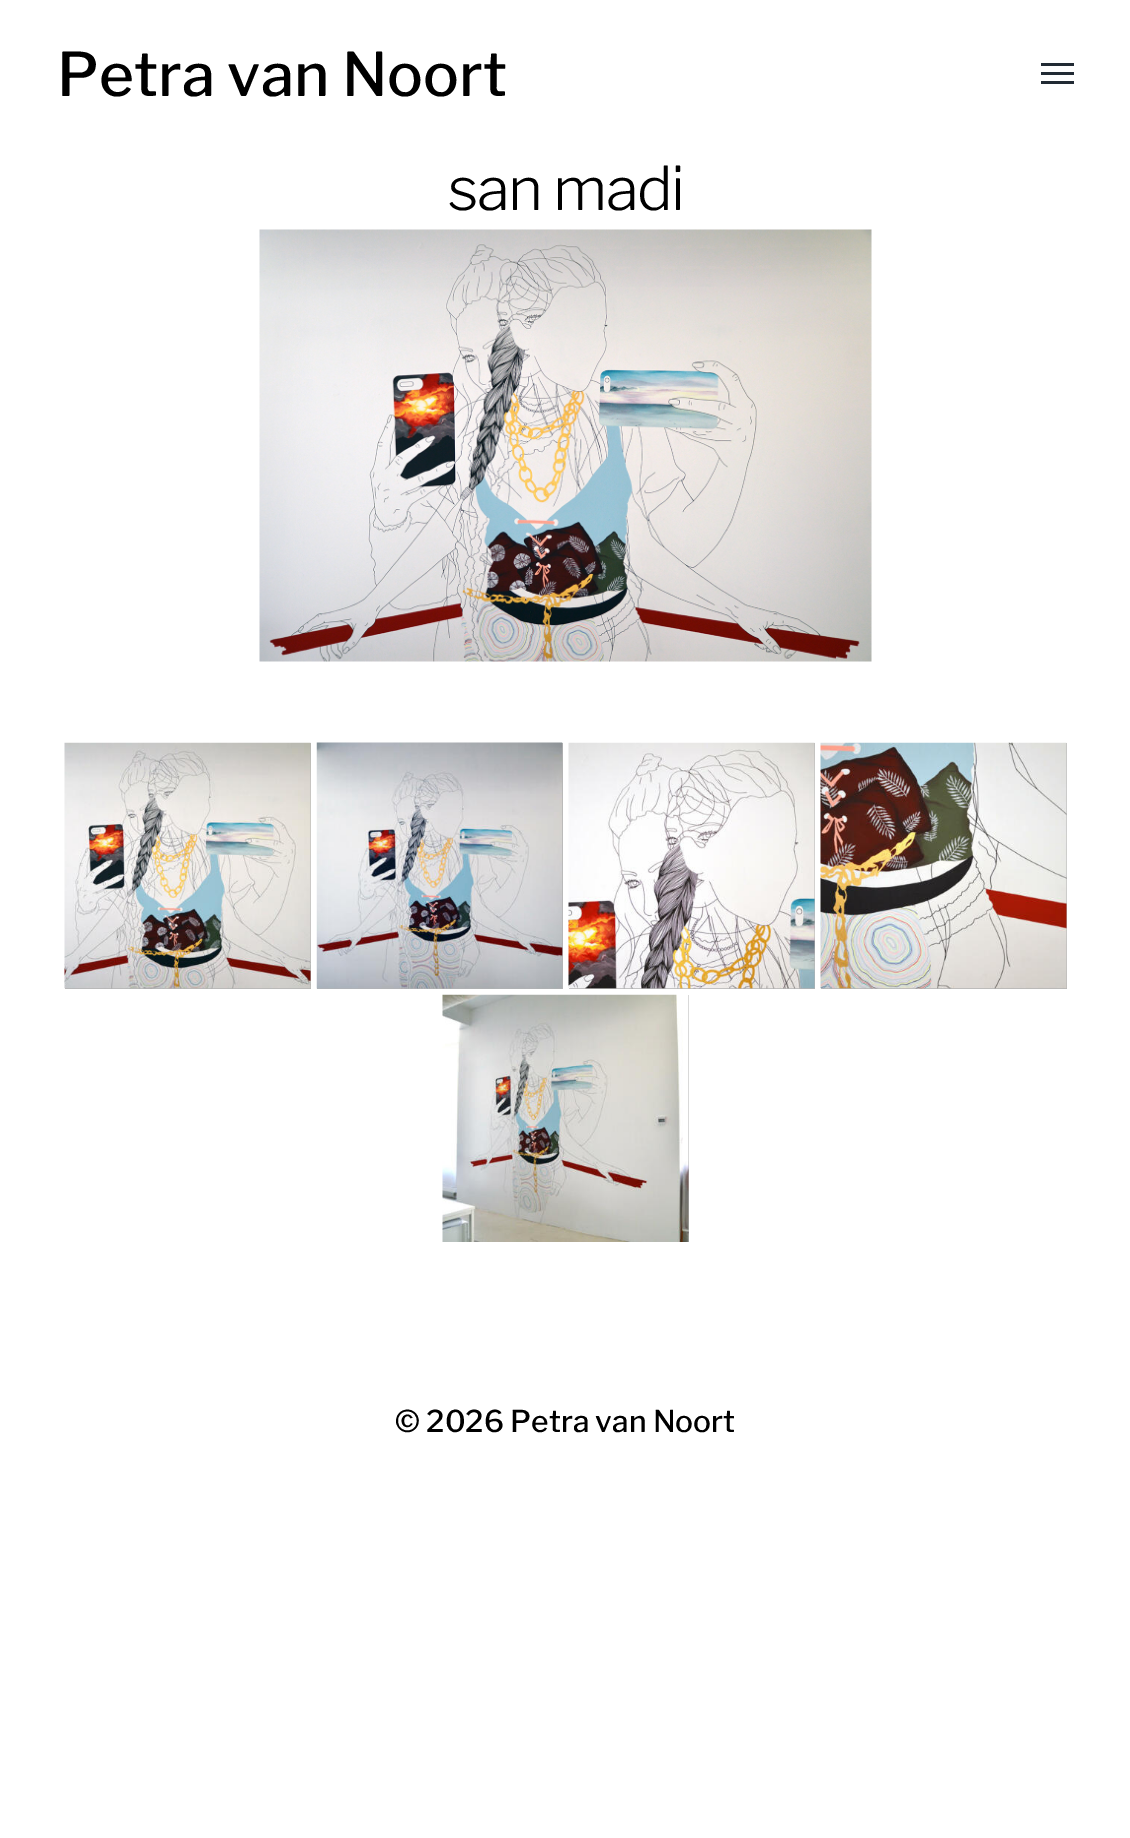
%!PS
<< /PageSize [1130 1838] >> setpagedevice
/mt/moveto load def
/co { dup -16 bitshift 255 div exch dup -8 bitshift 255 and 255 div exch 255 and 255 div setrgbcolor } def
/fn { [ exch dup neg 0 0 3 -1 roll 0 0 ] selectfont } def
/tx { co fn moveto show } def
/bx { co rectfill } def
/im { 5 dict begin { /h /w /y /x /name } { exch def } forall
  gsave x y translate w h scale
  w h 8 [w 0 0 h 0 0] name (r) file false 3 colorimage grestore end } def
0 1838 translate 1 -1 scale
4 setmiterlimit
0 0 1130 1838 16#FFFFFF bx
1041 63 33 3 16#212A34 bx
1041 72 33 3 16#212A34 bx
1041 81 33 3 16#212A34 bx
(media/1.raw) 259 229 613 433 im
65 743 246 246 16#B3B3B3 bx
(media/2.raw) 64 742 247 247 im
317 743 246 246 16#B3B3B3 bx
(media/3.raw) 316 742 247 247 im
569 743 246 246 16#B3B3B3 bx
(media/4.raw) 568 742 247 247 im
821 743 246 246 16#B3B3B3 bx
(media/5.raw) 820 742 247 247 im
688 995 1 247 16#B3B3B3 bx
(media/6.raw) 442 994 247 248 im
(Petra van Noort) 57 96 /LibreFranklin-Medium 60 16#000000 tx
/LibreFranklin-Light 60 fn
448 210 mt -1.5 0 (san madi) ashow
(© 2026 Petra van Noort) 395 1432 /LibreFranklin-Medium 30 16#000000 tx
showpage
